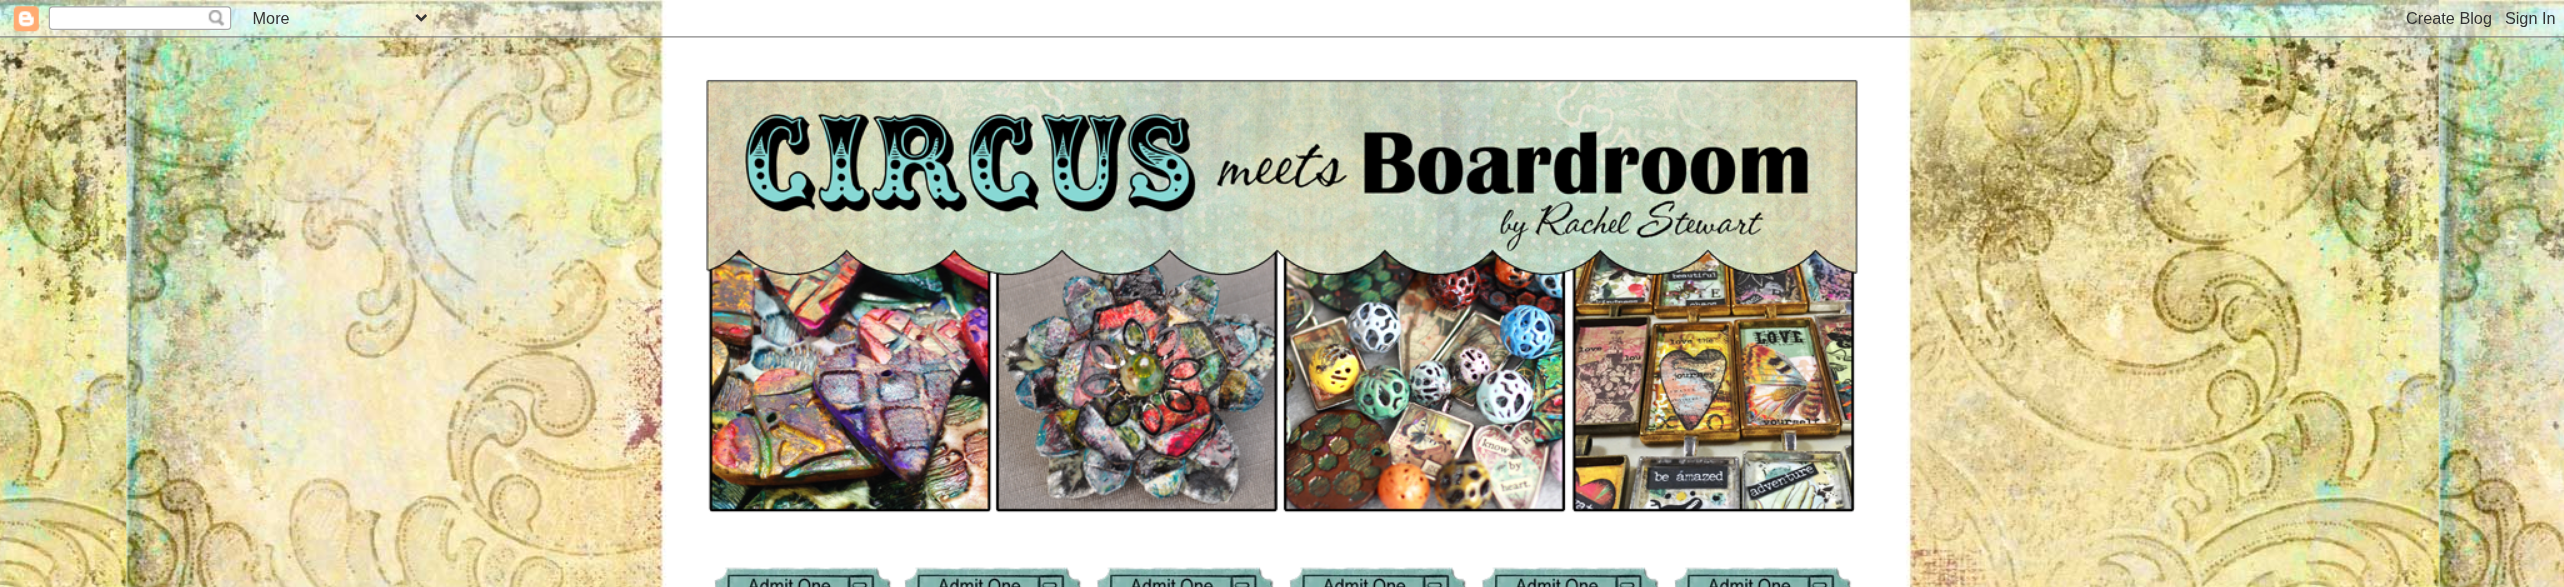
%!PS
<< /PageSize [2564 587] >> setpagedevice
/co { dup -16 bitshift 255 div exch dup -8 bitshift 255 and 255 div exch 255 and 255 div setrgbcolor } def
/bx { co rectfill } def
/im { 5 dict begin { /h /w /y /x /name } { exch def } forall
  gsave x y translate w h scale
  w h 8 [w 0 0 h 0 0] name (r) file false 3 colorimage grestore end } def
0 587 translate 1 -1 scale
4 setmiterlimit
0 0 2564 587 16#FFFFFF bx
(media/1.raw) 0 0 2564 587 im
(media/2.raw) 0 0 2564 38 im
(media/3.raw) 706 79 1152 434 im
(media/4.raw) 714 567 178 20 im
(media/5.raw) 904 567 178 20 im
(media/6.raw) 1096 567 178 20 im
(media/7.raw) 1289 567 178 20 im
(media/8.raw) 1481 567 178 20 im
(media/9.raw) 1674 567 178 20 im
showpage
